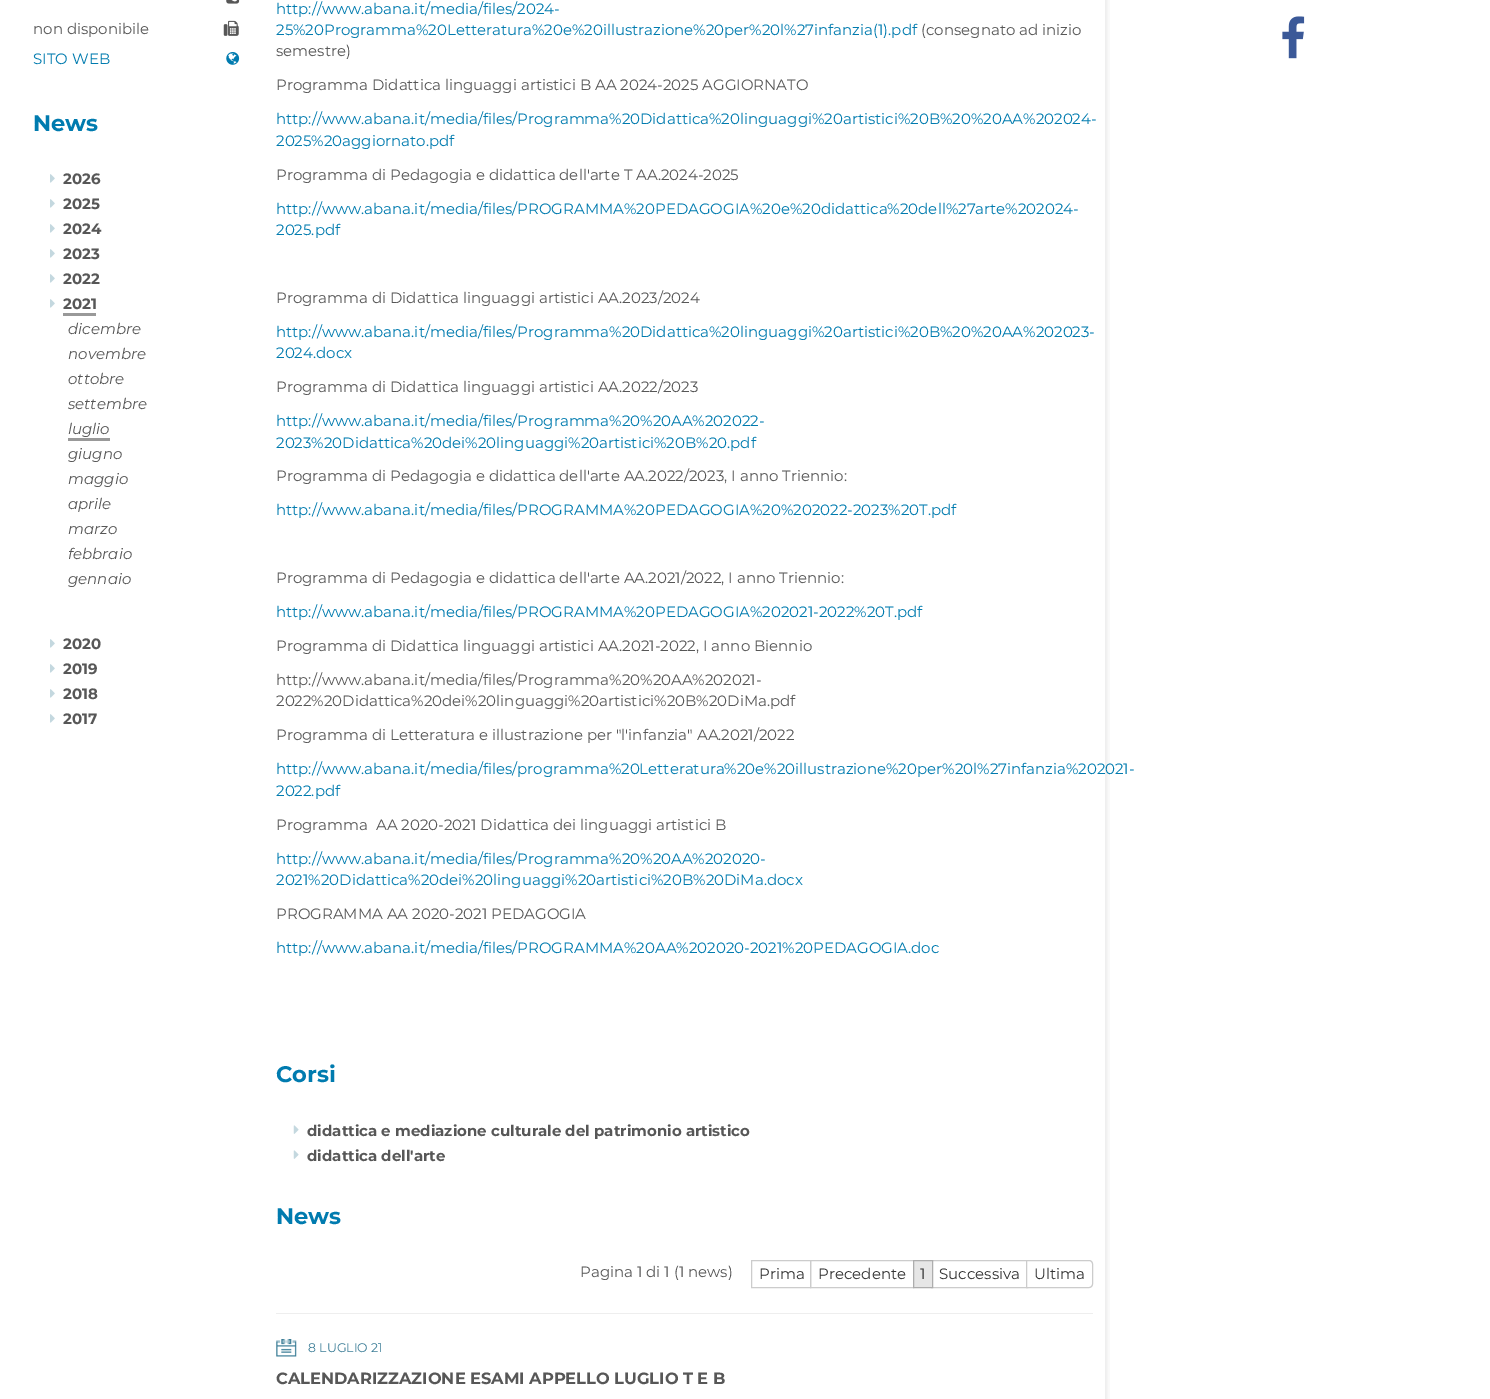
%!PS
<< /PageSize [1490 1399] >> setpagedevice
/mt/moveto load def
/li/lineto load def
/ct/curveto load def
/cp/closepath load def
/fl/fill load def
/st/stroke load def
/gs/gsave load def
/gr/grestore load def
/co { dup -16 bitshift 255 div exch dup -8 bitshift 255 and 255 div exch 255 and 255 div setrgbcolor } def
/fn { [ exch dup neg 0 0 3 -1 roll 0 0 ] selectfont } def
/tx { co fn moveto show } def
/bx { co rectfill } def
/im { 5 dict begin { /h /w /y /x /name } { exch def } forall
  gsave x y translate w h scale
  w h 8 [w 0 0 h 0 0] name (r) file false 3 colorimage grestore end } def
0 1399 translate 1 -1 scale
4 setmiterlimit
0 0 1490 1399 16#FFFFFF bx
(media/1.raw) 1105 0 5 1399 im
(media/2.raw) 226 0 14 4 im
(media/3.raw) 223 20 16 16 im
(media/4.raw) 226 52 14 13 im
(media/5.raw) 50 174 5 9 im
(media/5.raw) 50 199 5 9 im
(media/5.raw) 50 224 5 9 im
(media/5.raw) 50 249 5 9 im
(media/5.raw) 50 274 5 9 im
(media/5.raw) 50 299 5 9 im
63 313 33 3 16#999999 bx
68 438 42 3 16#999999 bx
(media/5.raw) 50 639 5 9 im
(media/5.raw) 50 664 5 9 im
(media/5.raw) 50 689 5 9 im
(media/5.raw) 50 714 5 9 im
(media/6.raw) 293 1125 6 9 im
(media/6.raw) 293 1150 6 9 im
16#CCCCCC co
751.5 1260.5 59 27 rectstroke
810.5 1260.5 103 27 rectstroke
931.5 1260.5 96 27 rectstroke
16#E6E6E6 co
913.5 1260.5 mt 932.5 1260.5 li 932.5 1287.5 li 913.5 1287.5 li cp gs fl gr
16#ADADAD co
st
16#FFFFFF co
1026.5 1260.5 mt 1089 1260.5 li 1091 1260.5 1092.5 1262 1092.5 1264 ct 1092.5 1284 li 1092.5 1286 1091 1287.5 1089 1287.5 ct 1026.5 1287.5 li cp gs fl gr
16#CCCCCC co
st
276 1313 817 1 16#EEEEEE bx
(media/7.raw) 276 1339 21 18 im
(media/8.raw) 1282 16 23 43 im
(non disponibile) 33 34 /Montserrat-Regular 15 16#575757 tx
(SITO WEB) 33 64 /Montserrat-Regular 15 16#007BAF tx
(News) 33 131 /Montserrat-Bold 22.5 16#007BAF tx
(2026) 63 184 /Montserrat-Bold 15 16#575757 tx
(2025) 63 209 /Montserrat-Bold 15 16#575757 tx
(2024) 63 234 /Montserrat-Bold 15 16#575757 tx
(2023) 63 259 /Montserrat-Bold 15 16#575757 tx
(2022) 63 284 /Montserrat-Bold 15 16#575757 tx
(2021) 63 309 /Montserrat-Bold 15 16#575757 tx
(dicembre) 68 334 /Montserrat-Italic 15 16#575757 tx
(novembre) 68 359 /Montserrat-Italic 15 16#575757 tx
(ottobre) 68 384 /Montserrat-Italic 15 16#575757 tx
(settembre) 68 409 /Montserrat-Italic 15 16#575757 tx
(luglio) 68 434 /Montserrat-Italic 15 16#575757 tx
(giugno) 68 459 /Montserrat-Italic 15 16#575757 tx
(maggio) 68 484 /Montserrat-Italic 15 16#575757 tx
(aprile) 68 509 /Montserrat-Italic 15 16#575757 tx
(marzo) 68 534 /Montserrat-Italic 15 16#575757 tx
(febbraio) 68 559 /Montserrat-Italic 15 16#575757 tx
(gennaio) 68 584 /Montserrat-Italic 15 16#575757 tx
(2020) 63 649 /Montserrat-Bold 15 16#575757 tx
(2019) 63 674 /Montserrat-Bold 15 16#575757 tx
(2018) 63 699 /Montserrat-Bold 15 16#575757 tx
(2017) 63 724 /Montserrat-Bold 15 16#575757 tx
(http://www.abana.it/media/files/2024-) 276 14 /Montserrat-Regular 15 16#007BAF tx
(25%20Programma%20Letteratura%20e%20illustrazione%20per%20l%27infanzia\(1\).pdf) 276 35 /Montserrat-Regular 15 16#007BAF tx
(\(consegnato ad inizio) 921 35 /Montserrat-Regular 15 16#575757 tx
(semestre\)) 276 56 /Montserrat-Regular 15 16#575757 tx
(Programma Didattica linguaggi artistici B AA 2024-2025 AGGIORNATO) 276 90 /Montserrat-Regular 15 16#575757 tx
(http://www.abana.it/media/files/Programma%20Didattica%20linguaggi%20artistici%20B%20%20AA%202024-) 276 124 /Montserrat-Regular 15 16#007BAF tx
(2025%20aggiornato.pdf) 276 146 /Montserrat-Regular 15 16#007BAF tx
(Programma di Pedagogia e didattica dell'arte T AA.2024-2025) 276 180 /Montserrat-Regular 15 16#575757 tx
(http://www.abana.it/media/files/PROGRAMMA%20PEDAGOGIA%20e%20didattica%20dell%27arte%202024-) 276 214 /Montserrat-Regular 15 16#007BAF tx
(2025.pdf) 276 235 /Montserrat-Regular 15 16#007BAF tx
(Programma di Didattica linguaggi artistici AA.2023/2024) 276 303 /Montserrat-Regular 15 16#575757 tx
(http://www.abana.it/media/files/Programma%20Didattica%20linguaggi%20artistici%20B%20%20AA%202023-) 276 337 /Montserrat-Regular 15 16#007BAF tx
(2024.docx) 276 358 /Montserrat-Regular 15 16#007BAF tx
(Programma di Didattica linguaggi artistici AA.2022/2023) 276 392 /Montserrat-Regular 15 16#575757 tx
(http://www.abana.it/media/files/Programma%20%20AA%202022-) 276 426 /Montserrat-Regular 15 16#007BAF tx
(2023%20Didattica%20dei%20linguaggi%20artistici%20B%20.pdf) 276 448 /Montserrat-Regular 15 16#007BAF tx
(Programma di Pedagogia e didattica dell'arte AA.2022/2023, I anno Triennio:) 276 481 /Montserrat-Regular 15 16#575757 tx
(http://www.abana.it/media/files/PROGRAMMA%20PEDAGOGIA%20%202022-2023%20T.pdf) 276 515 /Montserrat-Regular 15 16#007BAF tx
(Programma di Pedagogia e didattica dell'arte AA.2021/2022, I anno Triennio:) 276 583 /Montserrat-Regular 15 16#575757 tx
(http://www.abana.it/media/files/PROGRAMMA%20PEDAGOGIA%202021-2022%20T.pdf) 276 617 /Montserrat-Regular 15 16#007BAF tx
(Programma di Didattica linguaggi artistici AA.2021-2022, I anno Biennio) 276 651 /Montserrat-Regular 15 16#575757 tx
(http://www.abana.it/media/files/Programma%20%20AA%202021-) 276 685 /Montserrat-Regular 15 16#575757 tx
(2022%20Didattica%20dei%20linguaggi%20artistici%20B%20DiMa.pdf) 276 706 /Montserrat-Regular 15 16#575757 tx
(Programma di Letteratura e illustrazione per "l'infanzia" AA.2021/2022) 276 740 /Montserrat-Regular 15 16#575757 tx
(http://www.abana.it/media/files/programma%20Letteratura%20e%20illustrazione%20per%20l%27infanzia%202021-) 276 774 /Montserrat-Regular 15 16#007BAF tx
(2022.pdf) 276 796 /Montserrat-Regular 15 16#007BAF tx
(Programma  AA 2020-2021 Didattica dei linguaggi artistici B) 276 830 /Montserrat-Regular 15 16#575757 tx
(http://www.abana.it/media/files/Programma%20%20AA%202020-) 276 864 /Montserrat-Regular 15 16#007BAF tx
(2021%20Didattica%20dei%20linguaggi%20artistici%20B%20DiMa.docx) 276 885 /Montserrat-Regular 15 16#007BAF tx
(PROGRAMMA AA 2020-2021 PEDAGOGIA) 276 919 /Montserrat-Regular 15 16#575757 tx
(http://www.abana.it/media/files/PROGRAMMA%20AA%202020-2021%20PEDAGOGIA.doc) 276 953 /Montserrat-Regular 15 16#007BAF tx
(Corsi) 276 1082 /Montserrat-Bold 22.5 16#007BAF tx
(didattica e mediazione culturale del patrimonio artistico) 307 1136 /Montserrat-Bold 15 16#575757 tx
(didattica dell'arte) 307 1161 /Montserrat-Bold 15 16#575757 tx
(News) 276 1224 /Montserrat-Bold 22.5 16#007BAF tx
(Pagina 1 di 1 \(1 news\)) 580 1277 /Montserrat-Regular 15 16#575757 tx
(Prima) 759 1279 /Montserrat-Regular 15 16#333333 tx
(Precedente) 818 1279 /Montserrat-Regular 15 16#333333 tx
(1) 920 1279 /Montserrat-Regular 15 16#333333 tx
(Successiva) 939 1279 /Montserrat-Regular 15 16#333333 tx
(Ultima) 1034 1279 /Montserrat-Regular 15 16#333333 tx
(8 LUGLIO 21) 308 1352 /Montserrat-Regular 12.5 16#3B7D97 tx
(CALENDARIZZAZIONE ESAMI APPELLO LUGLIO T E B) 276 1384 /Montserrat-Bold 16.25 16#575757 tx
showpage
